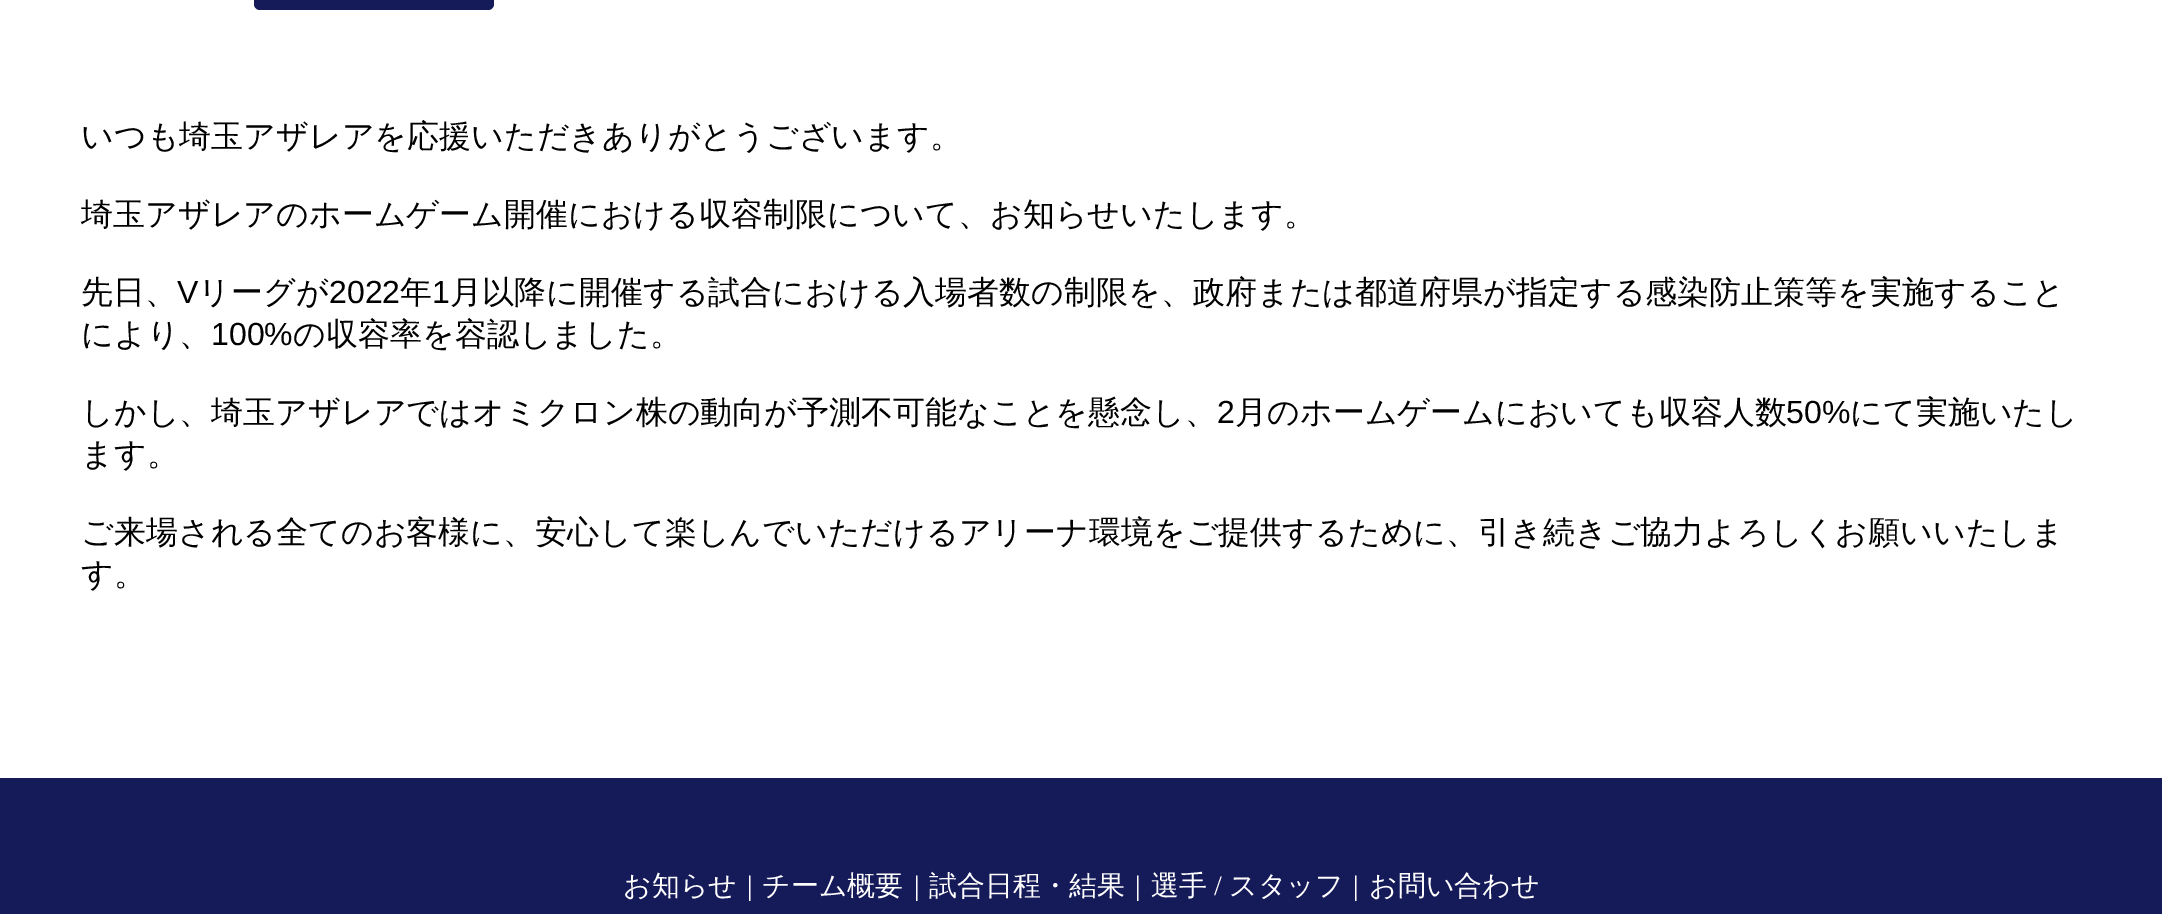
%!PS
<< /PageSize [2162 914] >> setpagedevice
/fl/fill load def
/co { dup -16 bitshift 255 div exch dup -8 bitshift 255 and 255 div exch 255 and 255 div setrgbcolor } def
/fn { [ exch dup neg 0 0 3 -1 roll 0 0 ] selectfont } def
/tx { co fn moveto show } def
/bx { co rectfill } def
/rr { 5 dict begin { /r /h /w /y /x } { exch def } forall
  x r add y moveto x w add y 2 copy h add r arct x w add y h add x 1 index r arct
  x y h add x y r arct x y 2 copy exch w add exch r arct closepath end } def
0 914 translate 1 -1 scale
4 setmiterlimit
0 0 2162 914 16#FFFFFF bx
16#151A59 co
254 -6 240 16 6 rr fl
0 778 2162 136 16#151A59 bx
(いつも埼玉アザレアを応援いただきありがとうございます。) 81 147 /WenQuanYiZenHei-Medium 32 16#000000 tx
(埼玉アザレアのホームゲーム開催における収容制限について、お知らせいたします。) 81 225 /WenQuanYiZenHei-Medium 32 16#000000 tx
(先日、) 81 303 /WenQuanYiZenHei-Medium 32 16#000000 tx
(V) 177 303 /LiberationSans-Regular 32 16#000000 tx
(リーグが) 198 303 /WenQuanYiZenHei-Medium 32 16#000000 tx
(2022) 329 303 /LiberationSans-Regular 32 16#000000 tx
(年) 400 303 /WenQuanYiZenHei-Medium 32 16#000000 tx
(1) 432 303 /LiberationSans-Regular 32 16#000000 tx
(月以降に開催する試合における入場者数の制限を、政府または都道府県が指定する感染防止策等を実施すること) 450 303 /WenQuanYiZenHei-Medium 32 16#000000 tx
(により、) 81 345 /WenQuanYiZenHei-Medium 32 16#000000 tx
(100%) 211 345 /LiberationSans-Regular 32 16#000000 tx
(の収容率を容認しました。) 293 345 /WenQuanYiZenHei-Medium 32 16#000000 tx
(しかし、埼玉アザレアではオミクロン株の動向が予測不可能なことを懸念し、) 81 423 /WenQuanYiZenHei-Medium 32 16#000000 tx
(2) 1217 423 /LiberationSans-Regular 32 16#000000 tx
(月のホームゲームにおいても収容人数) 1235 423 /WenQuanYiZenHei-Medium 32 16#000000 tx
(50%) 1786 423 /LiberationSans-Regular 32 16#000000 tx
(にて実施いたし) 1850 423 /WenQuanYiZenHei-Medium 32 16#000000 tx
(ます。) 81 465 /WenQuanYiZenHei-Medium 32 16#000000 tx
(ご来場される全てのお客様に、安心して楽しんでいただけるアリーナ環境をご提供するために、引き続きご協力よろしくお願いいたしま) 81 543 /WenQuanYiZenHei-Medium 32 16#000000 tx
(す。) 81 585 /WenQuanYiZenHei-Medium 32 16#000000 tx
(お知らせ) 623 895 /WenQuanYiZenHei-Medium 28 16#FFFFFF tx
(|) 747 895 /LiberationSerif-Regular 28 16#FFFFFF tx
(チーム概要) 762 895 /WenQuanYiZenHei-Medium 28 16#FFFFFF tx
(|) 914 895 /LiberationSerif-Regular 28 16#FFFFFF tx
(試合日程・結果) 929 895 /WenQuanYiZenHei-Medium 28 16#FFFFFF tx
(|) 1135 895 /LiberationSerif-Regular 28 16#FFFFFF tx
(選手) 1151 895 /WenQuanYiZenHei-Medium 28 16#FFFFFF tx
(/) 1214 895 /LiberationSerif-Regular 28 16#FFFFFF tx
(スタッフ) 1229 895 /WenQuanYiZenHei-Medium 28 16#FFFFFF tx
(|) 1353 895 /LiberationSerif-Regular 28 16#FFFFFF tx
(お問い合わせ) 1369 895 /WenQuanYiZenHei-Medium 28 16#FFFFFF tx
showpage
